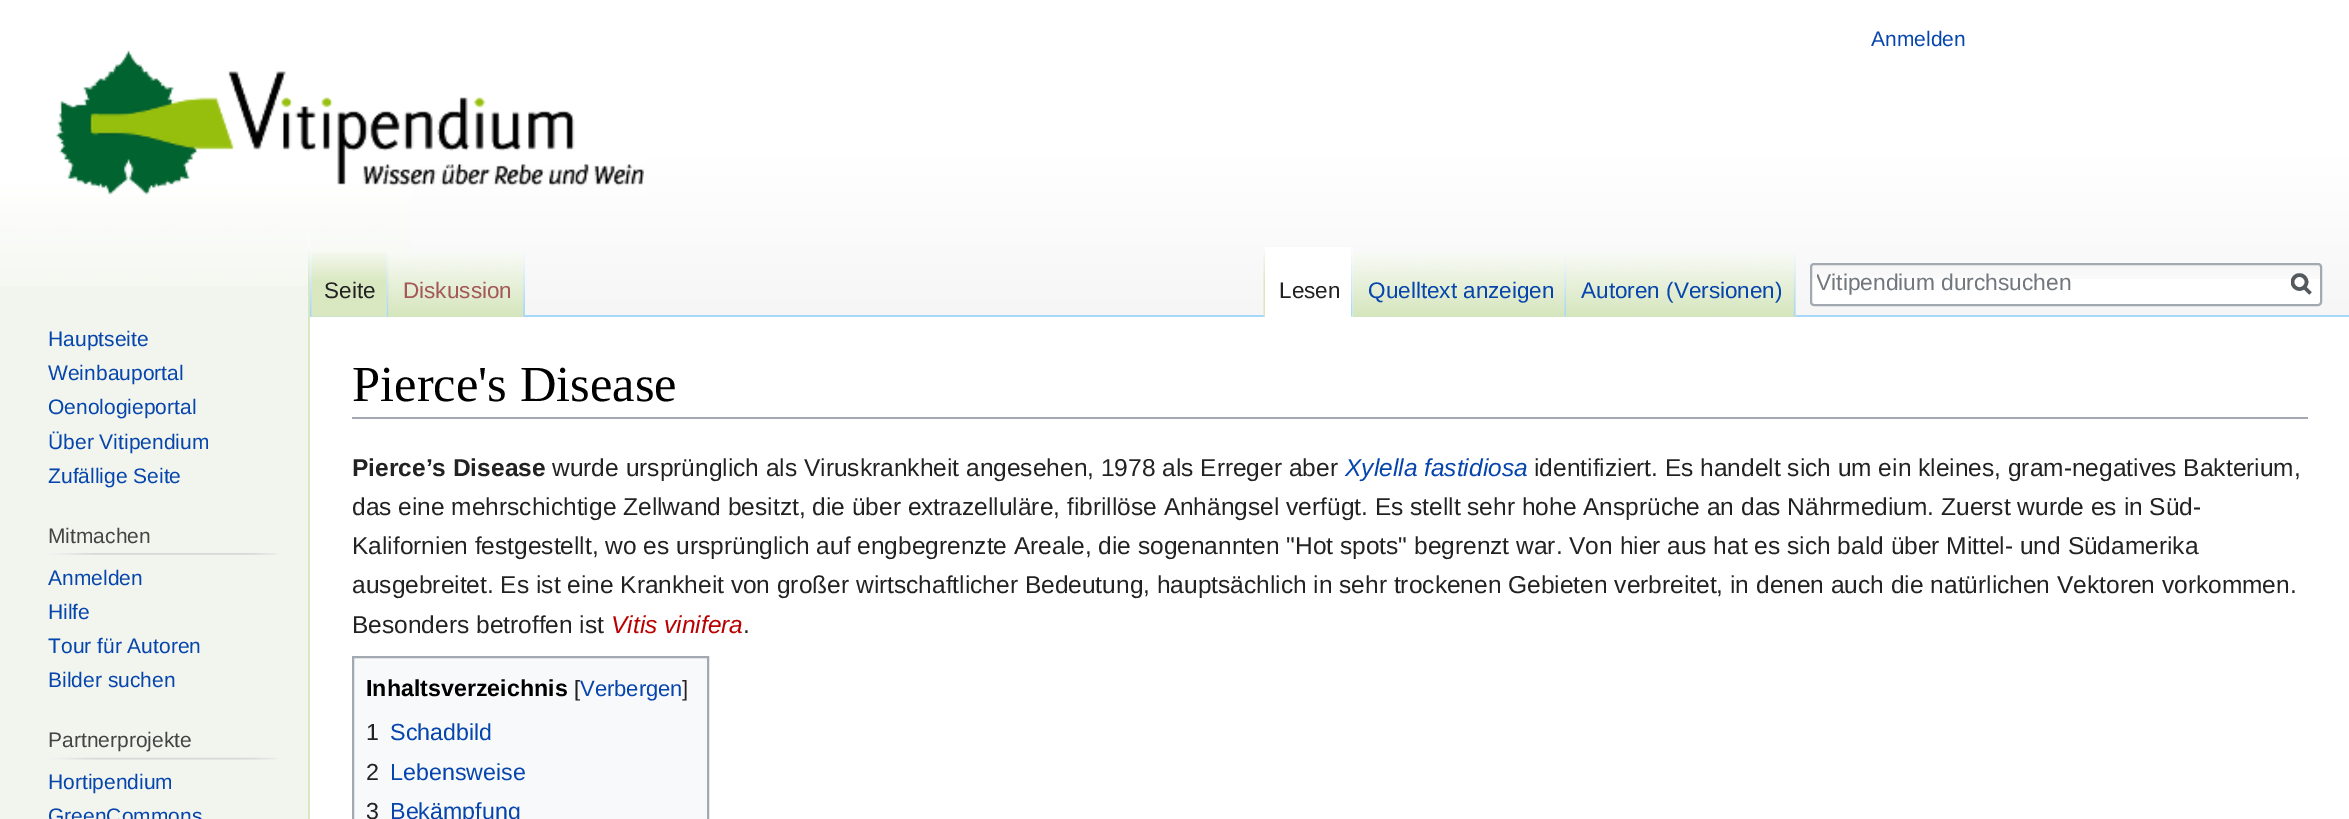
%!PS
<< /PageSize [2349 819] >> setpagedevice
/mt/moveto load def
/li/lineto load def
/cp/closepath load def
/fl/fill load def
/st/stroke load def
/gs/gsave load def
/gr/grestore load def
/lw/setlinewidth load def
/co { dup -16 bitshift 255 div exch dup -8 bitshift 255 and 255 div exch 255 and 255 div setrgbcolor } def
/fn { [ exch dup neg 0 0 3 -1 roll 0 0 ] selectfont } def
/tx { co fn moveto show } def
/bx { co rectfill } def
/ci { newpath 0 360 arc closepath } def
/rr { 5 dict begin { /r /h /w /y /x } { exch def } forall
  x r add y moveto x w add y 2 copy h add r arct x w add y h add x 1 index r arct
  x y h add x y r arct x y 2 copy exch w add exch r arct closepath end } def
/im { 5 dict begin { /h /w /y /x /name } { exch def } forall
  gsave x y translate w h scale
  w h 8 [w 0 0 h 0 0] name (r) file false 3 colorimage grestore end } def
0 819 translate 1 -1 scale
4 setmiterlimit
0 0 2349 819 16#F2F5ED bx
(media/1.raw) 0 0 411 286 im
gs 411 0 mt 2349 0 li 2349 315 li 411 315 li cp clip newpath
<< /ShadingType 2 /ColorSpace /DeviceRGB /Coords [1381 0 1381 315] /Extend [true true] /Function << /FunctionType 3 /Domain [0 1] /Functions [<< /FunctionType 2 /Domain [0 1] /C0 [1 1 1] /C1 [1 1 1] /N 1 >> << /FunctionType 2 /Domain [0 1] /C0 [1 1 1] /C1 [.965 .965 .965] /N 1 >>] /Bounds [.5] /Encode [0 1 0 1] >> >> shfill gr
(media/2.raw) 308 235 2 17 im
308 315 2041 2 16#A7D7F9 bx
308 315 2 504 16#D9E8C0 bx
(media/3.raw) 308 252 217 65 im
(media/4.raw) 523 316 2 1 im
(media/5.raw) 309 247 3 70 im
(media/6.raw) 386 247 3 70 im
(media/7.raw) 388 252 137 65 im
(media/8.raw) 523 252 2 65 im
(media/9.raw) 1263 252 533 65 im
(media/10.raw) 1794 256 2 61 im
1265 247 88 70 16#FFFFFF bx
(media/11.raw) 1351 247 2 70 im
(media/12.raw) 1352 252 215 65 im
(media/13.raw) 1564 252 3 65 im
(media/14.raw) 1566 252 230 65 im
(media/15.raw) 1793 252 3 65 im
1810 263 512 43 4 rr fl
(media/16.raw) 1810 264 512 15 im
16#A2A9B1 co
2 lw
1811 264 510 41 3 rr st
16#54595D co
3.5 lw
2310.5 293.5 mt 2303.5 286.5 li st
gs
2291 273 21 23 rectclip
2299.5 282 7 ci st
gr
(media/17.raw) 56 50 588 145 im
(media/18.raw) 47 553 230 2 im
(media/19.raw) 47 757 230 3 im
310 317 2039 502 16#FFFFFF bx
352 417 1956 2 16#A2A9B1 bx
16#F8F9FA co
353 657 mt 708 657 li 708 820 li 353 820 li cp gs fl gr
16#A2A9B1 co
2 lw
st
(Anmelden) 1871 46 /LiberationSans-Regular 21 16#0645AD tx
(Seite) 324 298 /LiberationSans-Regular 22.5 16#222222 tx
(Diskussion) 403 298 /LiberationSans-Regular 22.5 16#A55858 tx
(Lesen) 1279 298 /LiberationSans-Regular 22.5 16#222222 tx
(Quelltext anzeigen) 1368 298 /LiberationSans-Regular 22.5 16#0645AD tx
(Autoren \(Versionen\)) 1581 298 /LiberationSans-Regular 22.5 16#0645AD tx
gs
1817 270 442 26 rectclip
(Vitipendium durchsuchen) 1816 290 /LiberationSans-Regular 22.75 16#72777D tx
gr
(Hauptseite) 48 346 /LiberationSans-Regular 21 16#0645AD tx
(Weinbauportal) 48 380 /LiberationSans-Regular 21 16#0645AD tx
(Oenologieportal) 48 414 /LiberationSans-Regular 21 16#0645AD tx
(Über Vitipendium) 48 449 /LiberationSans-Regular 21 16#0645AD tx
(Zufällige Seite) 48 483 /LiberationSans-Regular 21 16#0645AD tx
(Mitmachen) 48 543 /LiberationSans-Regular 21 16#444444 tx
(Anmelden) 48 585 /LiberationSans-Regular 21 16#0645AD tx
(Hilfe) 48 619 /LiberationSans-Regular 21 16#0645AD tx
(Tour für Autoren) 48 653 /LiberationSans-Regular 21 16#0645AD tx
(Bilder suchen) 48 687 /LiberationSans-Regular 21 16#0645AD tx
(Partnerprojekte) 48 747 /LiberationSans-Regular 21 16#444444 tx
(Hortipendium) 48 789 /LiberationSans-Regular 21 16#0645AD tx
(GreenCommons) 48 823 /LiberationSans-Regular 21 16#0645AD tx
(Pierce's Disease) 352 401 /LiberationSerif-Regular 50.5 16#000000 tx
(Pierce’s Disease) 352 476 /LiberationSans-Bold 24.5 16#222222 tx
(wurde ursprünglich als Viruskrankheit angesehen, 1978 als Erreger aber) 552 476 /LiberationSans-Regular 24.5 16#222222 tx
(Xylella fastidiosa) 1345 476 /LiberationSans-Italic 24.5 16#0645AD tx
(identifiziert. Es handelt sich um ein kleines, gram-negatives Bakterium,) 1534 476 /LiberationSans-Regular 24.5 16#222222 tx
(das eine mehrschichtige Zellwand besitzt, die über extrazelluläre, fibrillöse Anhängsel verfügt. Es stellt sehr hohe Ansprüche an das Nährmedium. Zuerst wurde es in Süd-) 352 515 /LiberationSans-Regular 24.5 16#222222 tx
(Kalifornien festgestellt, wo es ursprünglich auf engbegrenzte Areale, die sogenannten "Hot spots" begrenzt war. Von hier aus hat es sich bald über Mittel- und Südamerika) 352 554 /LiberationSans-Regular 24.5 16#222222 tx
(ausgebreitet. Es ist eine Krankheit von großer wirtschaftlicher Bedeutung, hauptsächlich in sehr trockenen Gebieten verbreitet, in denen auch die natürlichen Vektoren vorkommen.) 352 593 /LiberationSans-Regular 24.5 16#222222 tx
(Besonders betroffen ist) 352 633 /LiberationSans-Regular 24.5 16#222222 tx
(Vitis vinifera) 611 633 /LiberationSans-Italic 24.5 16#BA0000 tx
(.) 743 633 /LiberationSans-Regular 24.5 16#222222 tx
(Inhaltsverzeichnis) 366 696 /LiberationSans-Bold 23.25 16#000000 tx
([) 574 696 /LiberationSans-Regular 22 16#222222 tx
(Verbergen) 580 696 /LiberationSans-Regular 22 16#0645AD tx
(]) 682 696 /LiberationSans-Regular 22 16#222222 tx
(1) 366 740 /LiberationSans-Regular 23.25 16#222222 tx
(Schadbild) 390 740 /LiberationSans-Regular 23.25 16#0645AD tx
(2) 366 780 /LiberationSans-Regular 23.25 16#222222 tx
(Lebensweise) 390 780 /LiberationSans-Regular 23.25 16#0645AD tx
(3) 366 819 /LiberationSans-Regular 23.25 16#222222 tx
(Bekämpfung) 390 819 /LiberationSans-Regular 23.25 16#0645AD tx
showpage
